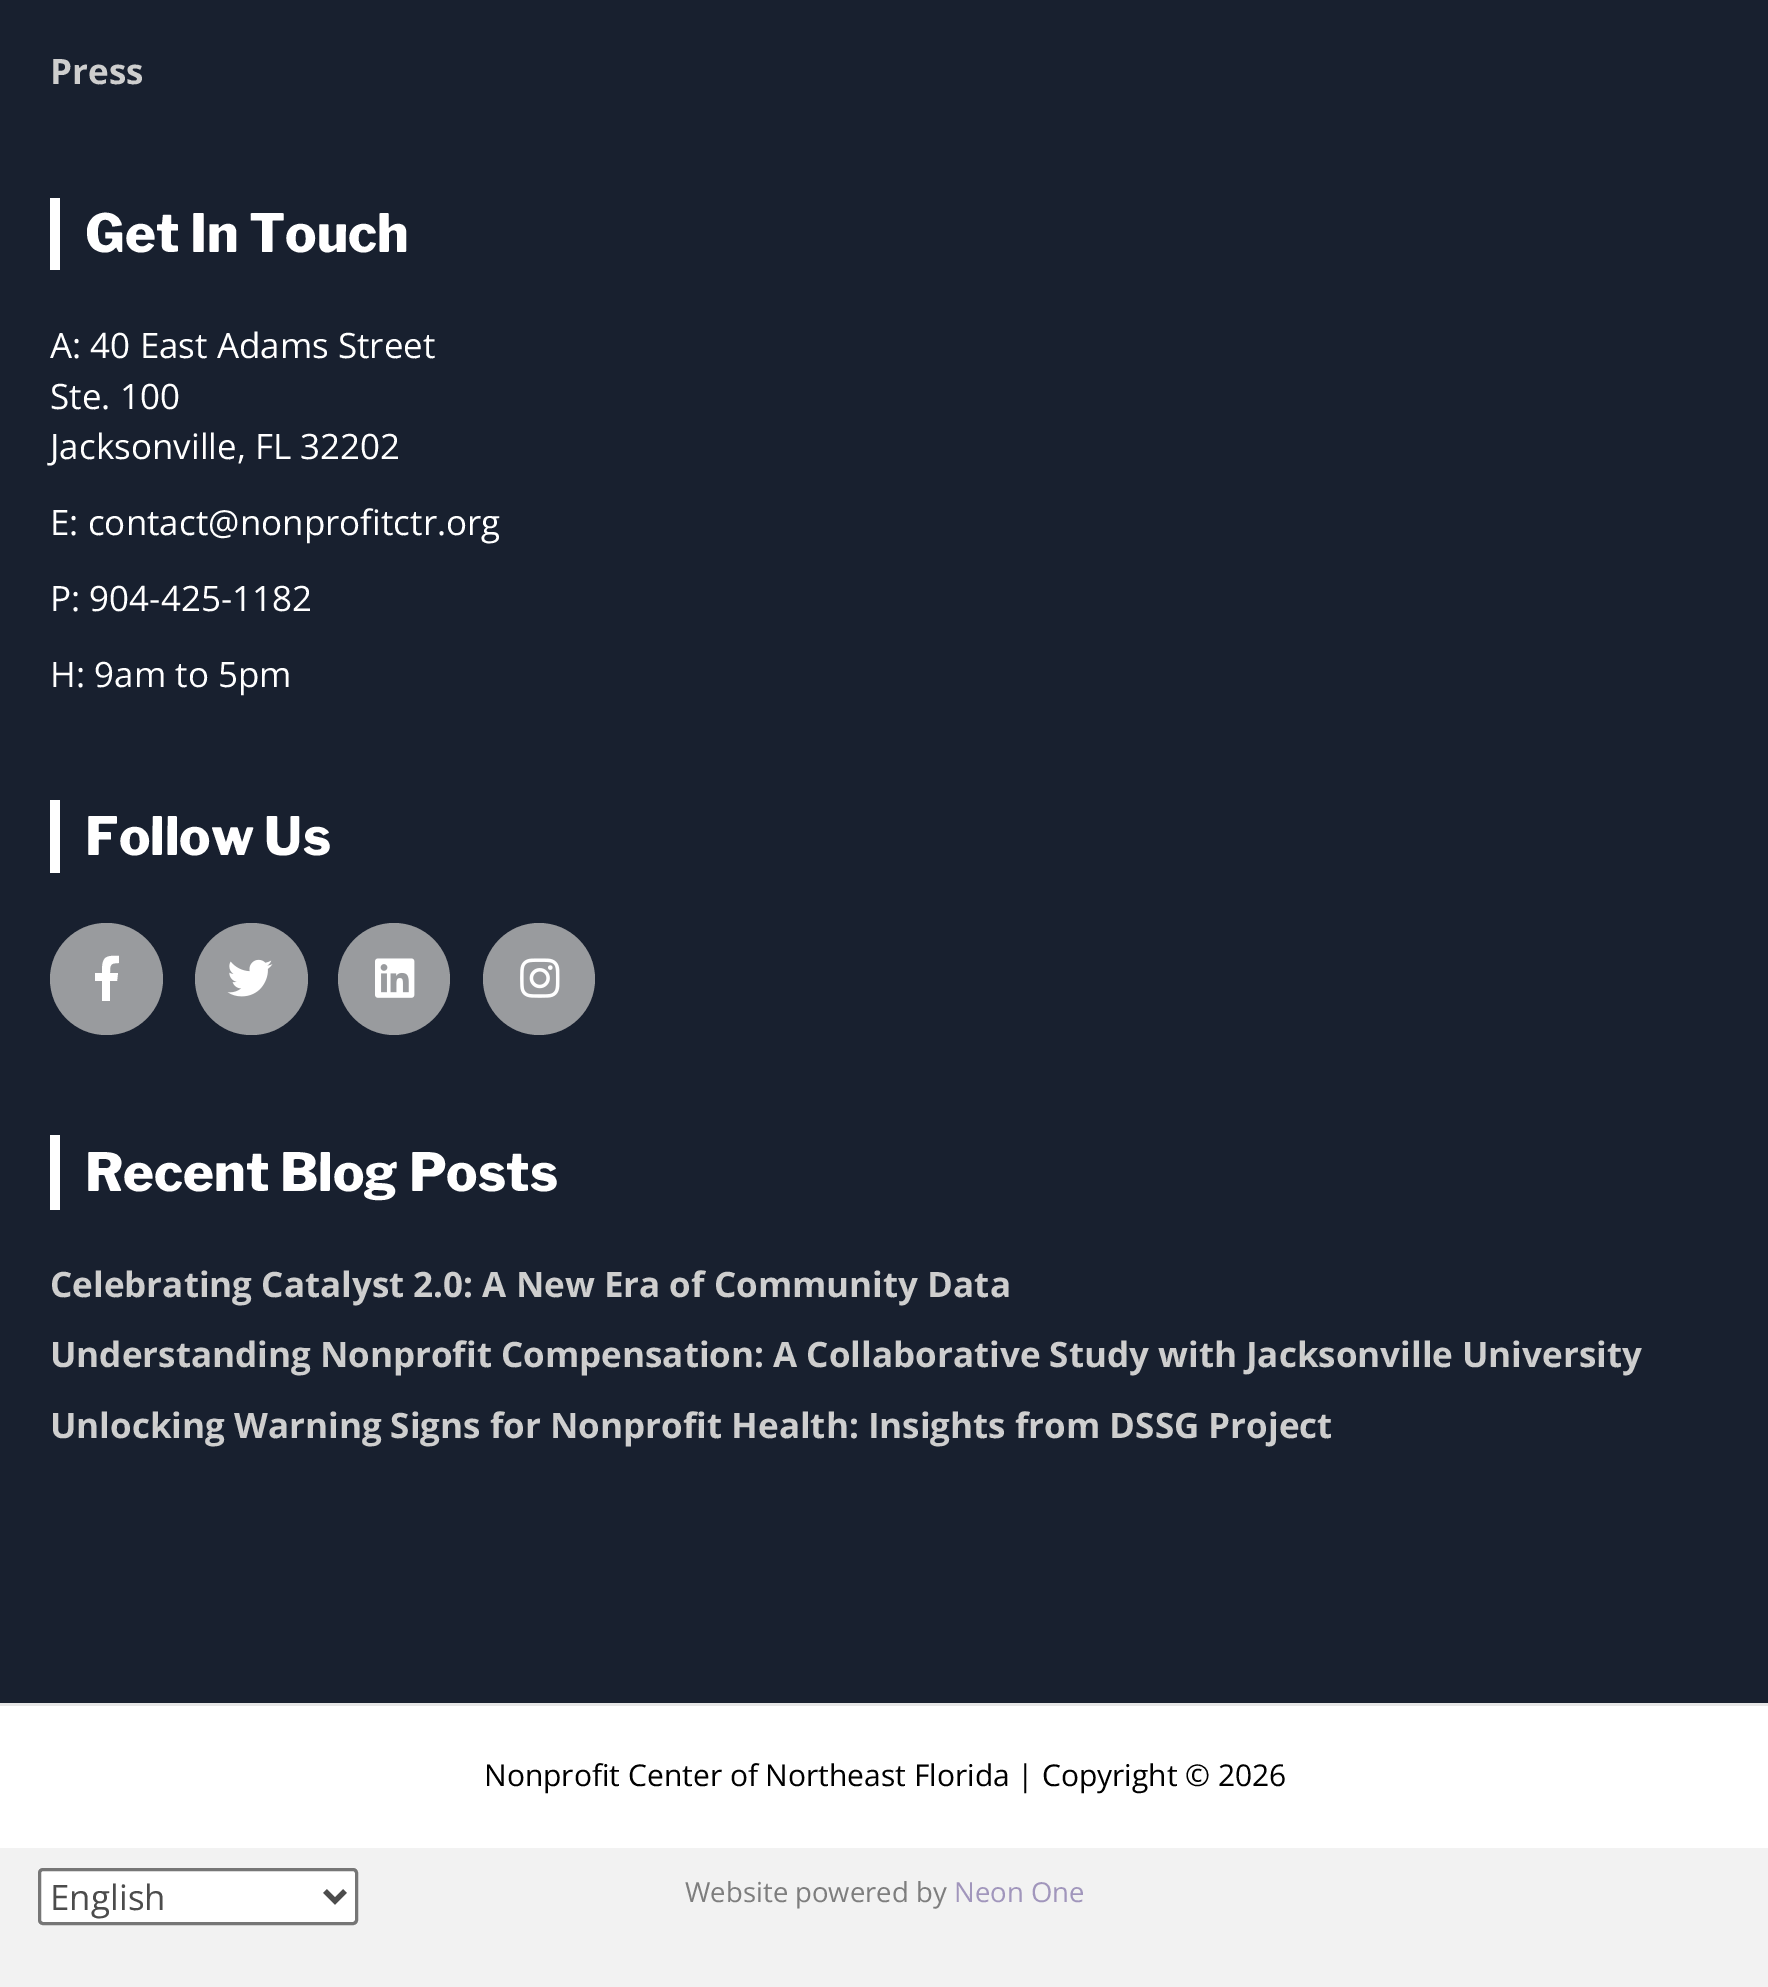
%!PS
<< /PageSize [1768 1987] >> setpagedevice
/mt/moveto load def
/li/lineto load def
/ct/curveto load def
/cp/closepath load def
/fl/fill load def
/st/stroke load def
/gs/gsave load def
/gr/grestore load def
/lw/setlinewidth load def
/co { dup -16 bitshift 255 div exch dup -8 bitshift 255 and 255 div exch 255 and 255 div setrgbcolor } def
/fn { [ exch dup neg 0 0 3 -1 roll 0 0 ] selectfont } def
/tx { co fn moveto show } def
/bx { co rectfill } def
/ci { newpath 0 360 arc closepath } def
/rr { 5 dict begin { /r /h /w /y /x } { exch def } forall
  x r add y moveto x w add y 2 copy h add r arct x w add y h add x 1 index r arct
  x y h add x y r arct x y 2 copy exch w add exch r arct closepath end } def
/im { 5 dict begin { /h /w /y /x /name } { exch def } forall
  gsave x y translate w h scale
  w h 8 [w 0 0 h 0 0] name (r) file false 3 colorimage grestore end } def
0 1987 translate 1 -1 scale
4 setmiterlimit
0 0 1768 1987 16#F2F2F2 bx
0 0 1768 1703 16#18202F bx
50 198 10 72 16#FFFFFF bx
50 800 10 73 16#FFFFFF bx
16#999B9E co
50 923 113 112 56 rr fl
16#FFFFFF co
117 981 mt 110 981 li 110 1001 li 102 1001 li 102 981 li 95 981 li 95 973 li 102 973 li 102 958 104 955 119 956 ct 119 963 li 110 963 110 965 110 973 ct 118 973 li cp fl
16#999B9E co
195 923 113 112 56 rr fl
(media/1.raw) 227 959 46 38 im
394 979 56 ci fl
(media/2.raw) 375 958 40 40 im
539 979 56 ci fl
(media/3.raw) 520 958 40 40 im
50 1135 10 75 16#FFFFFF bx
0 1706 1768 142 16#FFFFFF bx
0 1703 1768 3 16#E6E6E6 bx
16#FFFFFF co
39.5 1869.5 317 54 3.5 rr gs fl gr
16#767676 co
3 lw
st
16#4C4C4C co
5 lw
325 1891 mt 335 1901 li 345 1891 li st
(Press) 50 84 /OpenSans-Bold 35 16#CECECE tx
(Get In Touch) 85 252 /LibreFranklin-ExtraBold 52.5 16#FFFFFF tx
(A: 40 East Adams Street) 50 358 /OpenSans-Regular 35 16#FFFFFF tx
(Ste. 100) 50 409 /OpenSans-Regular 35 16#FFFFFF tx
(Jacksonville, FL 32202) 50 459 /OpenSans-Regular 35 16#FFFFFF tx
(E: contact@nonprofitctr.org) 50 535 /OpenSans-Regular 35 16#FFFFFF tx
(P: 904-425-1182) 50 611 /OpenSans-Regular 35 16#FFFFFF tx
(H: 9am to 5pm) 50 687 /OpenSans-Regular 35 16#FFFFFF tx
(Follow Us) 85 855 /LibreFranklin-ExtraBold 52.5 16#FFFFFF tx
(Recent Blog Posts) 85 1191 /LibreFranklin-ExtraBold 52.5 16#FFFFFF tx
(Celebrating Catalyst 2.0: A New Era of Community Data) 50 1297 /OpenSans-Bold 35 16#CECECE tx
(Understanding Nonprofit Compensation: A Collaborative Study with Jacksonville University) 50 1367 /OpenSans-Bold 35 16#CECECE tx
(Unlocking Warning Signs for Nonprofit Health: Insights from DSSG Project) 50 1438 /OpenSans-Bold 35 16#CECECE tx
(Nonprofit Center of Northeast Florida | Copyright © 2026) 484 1786 /OpenSans-Regular 30 16#000000 tx
(Website powered by) 685 1902 /OpenSans-Regular 27.5 16#7E7E7E tx
(Neon One) 954 1902 /OpenSans-Regular 27.5 16#A196BC tx
(English) 50 1910 /OpenSans-Regular 35 16#4C4C4C tx
showpage
